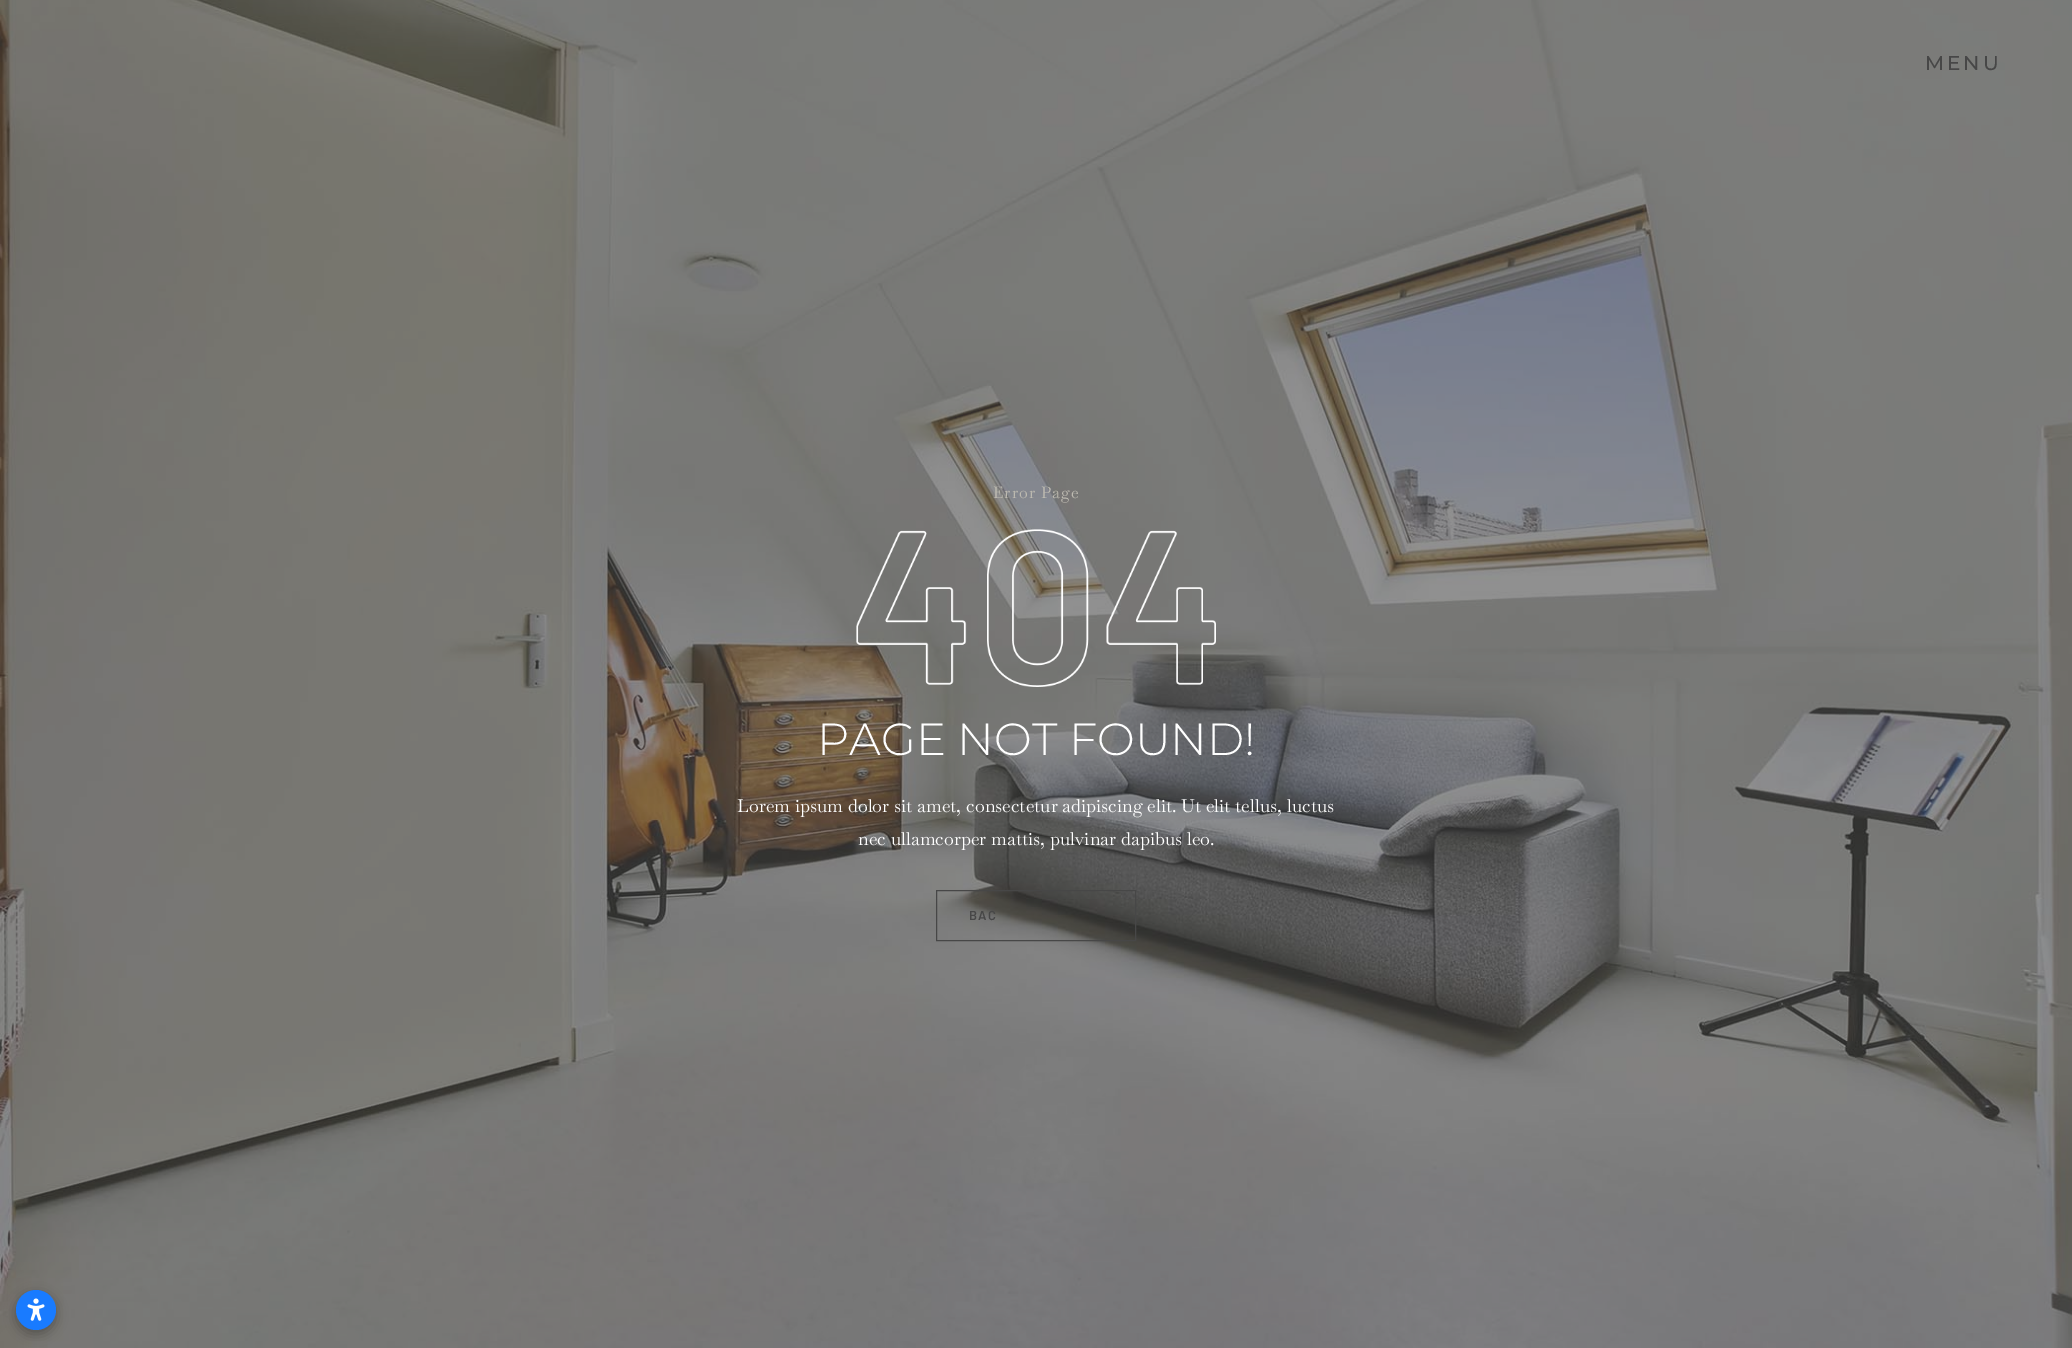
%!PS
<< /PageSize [2072 1348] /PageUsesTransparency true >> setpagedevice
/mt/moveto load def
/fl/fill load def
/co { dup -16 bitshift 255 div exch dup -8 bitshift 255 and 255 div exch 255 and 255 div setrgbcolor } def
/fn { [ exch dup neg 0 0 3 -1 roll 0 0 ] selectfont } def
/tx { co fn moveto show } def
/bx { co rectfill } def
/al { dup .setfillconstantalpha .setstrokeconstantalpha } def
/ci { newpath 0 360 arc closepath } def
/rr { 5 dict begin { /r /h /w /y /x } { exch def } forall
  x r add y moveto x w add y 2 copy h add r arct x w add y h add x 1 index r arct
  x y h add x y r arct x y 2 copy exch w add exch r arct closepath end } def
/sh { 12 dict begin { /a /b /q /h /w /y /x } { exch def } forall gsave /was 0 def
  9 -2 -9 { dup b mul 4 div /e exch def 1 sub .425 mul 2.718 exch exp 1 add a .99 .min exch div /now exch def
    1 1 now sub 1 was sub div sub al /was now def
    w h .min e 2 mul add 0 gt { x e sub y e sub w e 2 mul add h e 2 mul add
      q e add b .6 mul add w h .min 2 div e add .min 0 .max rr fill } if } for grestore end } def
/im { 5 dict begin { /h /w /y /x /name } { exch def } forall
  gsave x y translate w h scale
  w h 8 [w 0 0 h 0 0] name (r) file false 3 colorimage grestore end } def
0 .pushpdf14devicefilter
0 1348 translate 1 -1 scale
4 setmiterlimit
0 0 2072 1348 16#FFFFFF bx
(media/1.raw) 0 0 2072 1348 im
(media/2.raw) 856 529 360 158 im
16#474747 co
936.5 890.5 199 50 rectstroke
16#000000 co
16 1294 40 40 20 6 .3 sh
16#197BFF co
36 1310 20 ci fl
(media/3.raw) 27 1298 18 23 im
/Montserrat-Medium 20 fn
16#474747 co
1925 70 mt 3 0 (MENU) ashow
/Baskervville-Regular 16 fn
16#BEBBB1 co
993 498 mt 1 0 (Error Page) ashow
(PAGE NOT FOUND!) 817 755 /Montserrat-Light 45 16#FFFFFF tx
(Lorem ipsum dolor sit amet, consectetur adipiscing elit. Ut elit tellus, luctus) 737 812 /Baskervville-Regular 18 16#FFFFFF tx
(nec ullamcorper mattis, pulvinar dapibus leo.) 858 845 /Baskervville-Regular 18 16#FFFFFF tx
/Barlow-SemiBold 13 fn
16#474747 co
969 920 mt 1 0 (BAC) ashow
.poppdf14devicefilter showpage
